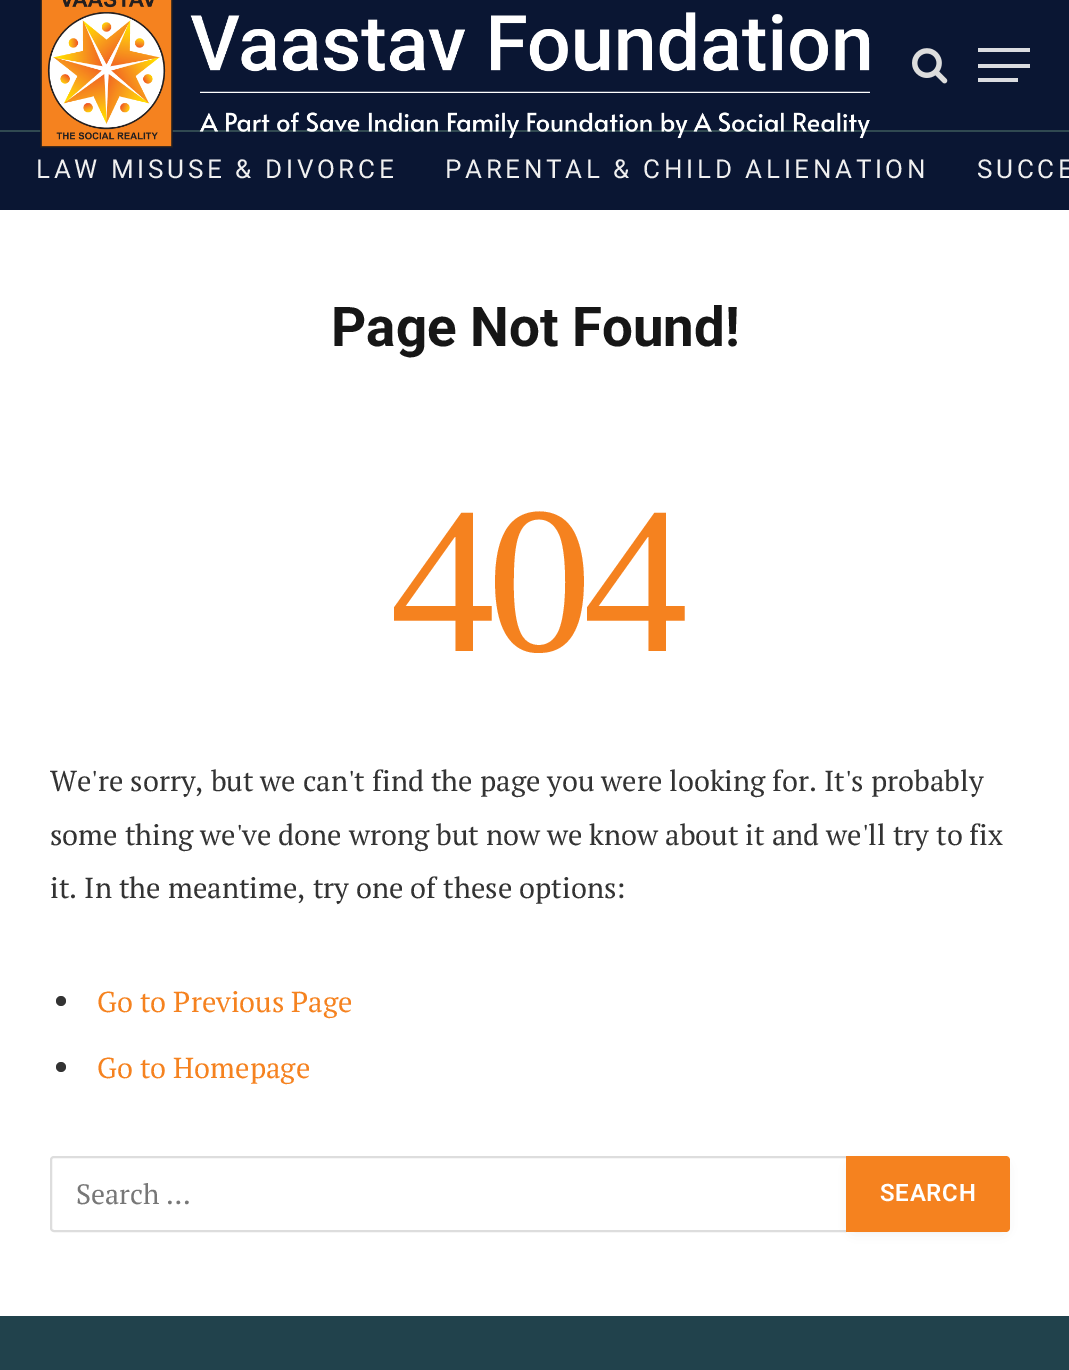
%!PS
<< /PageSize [1069 1370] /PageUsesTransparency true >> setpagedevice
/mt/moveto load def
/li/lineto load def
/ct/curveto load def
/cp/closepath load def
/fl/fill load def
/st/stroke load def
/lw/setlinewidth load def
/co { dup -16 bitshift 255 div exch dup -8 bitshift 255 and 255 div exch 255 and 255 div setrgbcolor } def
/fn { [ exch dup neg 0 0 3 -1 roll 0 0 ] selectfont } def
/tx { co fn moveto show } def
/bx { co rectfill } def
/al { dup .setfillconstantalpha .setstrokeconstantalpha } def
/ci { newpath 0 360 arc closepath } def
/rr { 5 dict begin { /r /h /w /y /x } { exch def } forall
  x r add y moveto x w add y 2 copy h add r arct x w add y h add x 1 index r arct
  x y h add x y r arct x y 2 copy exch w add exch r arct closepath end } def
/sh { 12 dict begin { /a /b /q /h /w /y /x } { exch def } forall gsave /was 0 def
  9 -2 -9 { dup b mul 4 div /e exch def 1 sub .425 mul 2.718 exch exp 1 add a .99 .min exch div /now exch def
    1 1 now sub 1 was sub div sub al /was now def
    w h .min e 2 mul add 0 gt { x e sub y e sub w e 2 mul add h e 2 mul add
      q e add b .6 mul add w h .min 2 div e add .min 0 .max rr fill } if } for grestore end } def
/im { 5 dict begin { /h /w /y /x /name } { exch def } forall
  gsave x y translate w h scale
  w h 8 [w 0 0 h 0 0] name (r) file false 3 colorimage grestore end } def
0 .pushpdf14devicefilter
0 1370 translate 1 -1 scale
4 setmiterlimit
0 0 1069 1370 16#FFFFFF bx
0 0 1069 130 16#0A1633 bx
0 132 1069 78 16#0A1633 bx
0 130 1069 2 16#304951 bx
(media/1.raw) 40 0 830 148 im
(media/2.raw) 912 48 36 36 im
978 78 40 4 16#DADCE0 bx
978 48 52 4 16#DADCE0 bx
978 64 52 4 16#DADCE0 bx
16#333333 co
61 1001 5 ci fl
61 1067 5 ci fl
16#DDDDDD co
2 lw
51 1157 798 74 3 rr st
16#000000 co
854 1168 148 60 0 7 .16 sh
16#F5821F co
846 1156 mt 1006 1156 li 1008 1156 1010 1158 1010 1160 ct 1010 1228 li 1010 1230 1008 1232 1006 1232 ct 846 1232 li cp fl
0 1316 1069 54 16#21424C bx
/Roboto-Regular 26 fn
16#F0F0F0 co
36 178 mt 3.65 0 (LAW MISUSE & DIVORCE) ashow
445 178 mt 3.65 0 (PARENTAL & CHILD ALIENATION) ashow
977 178 mt 3.65 0 (SUCCE) ashow
(Page Not Found!) 331 346 /Roboto-Bold 54.75 16#161616 tx
/LiberationSerif-Regular 210 fn
16#F5821F co
390 651 mt -8.5 0 (404) ashow
(We're sorry, but we can't find the page you were looking for. It's probably) 50 791 /PTSerif-Regular 28.8 16#333333 tx
(some thing we've done wrong but now we know about it and we'll try to fix) 50 845 /PTSerif-Regular 28.8 16#333333 tx
(it. In the meantime, try one of these options:) 50 898 /PTSerif-Regular 28.8 16#333333 tx
(Go to Previous Page) 97 1012 /PTSerif-Regular 28.8 16#F5821F tx
(Go to Homepage) 97 1078 /PTSerif-Regular 28.8 16#F5821F tx
(Search …) 76 1204 /PTSerif-Regular 28 16#777777 tx
/Roboto-SemiBold 24 fn
16#FFFFFF co
880 1201 mt .75 0 (SEARCH) ashow
.poppdf14devicefilter showpage
